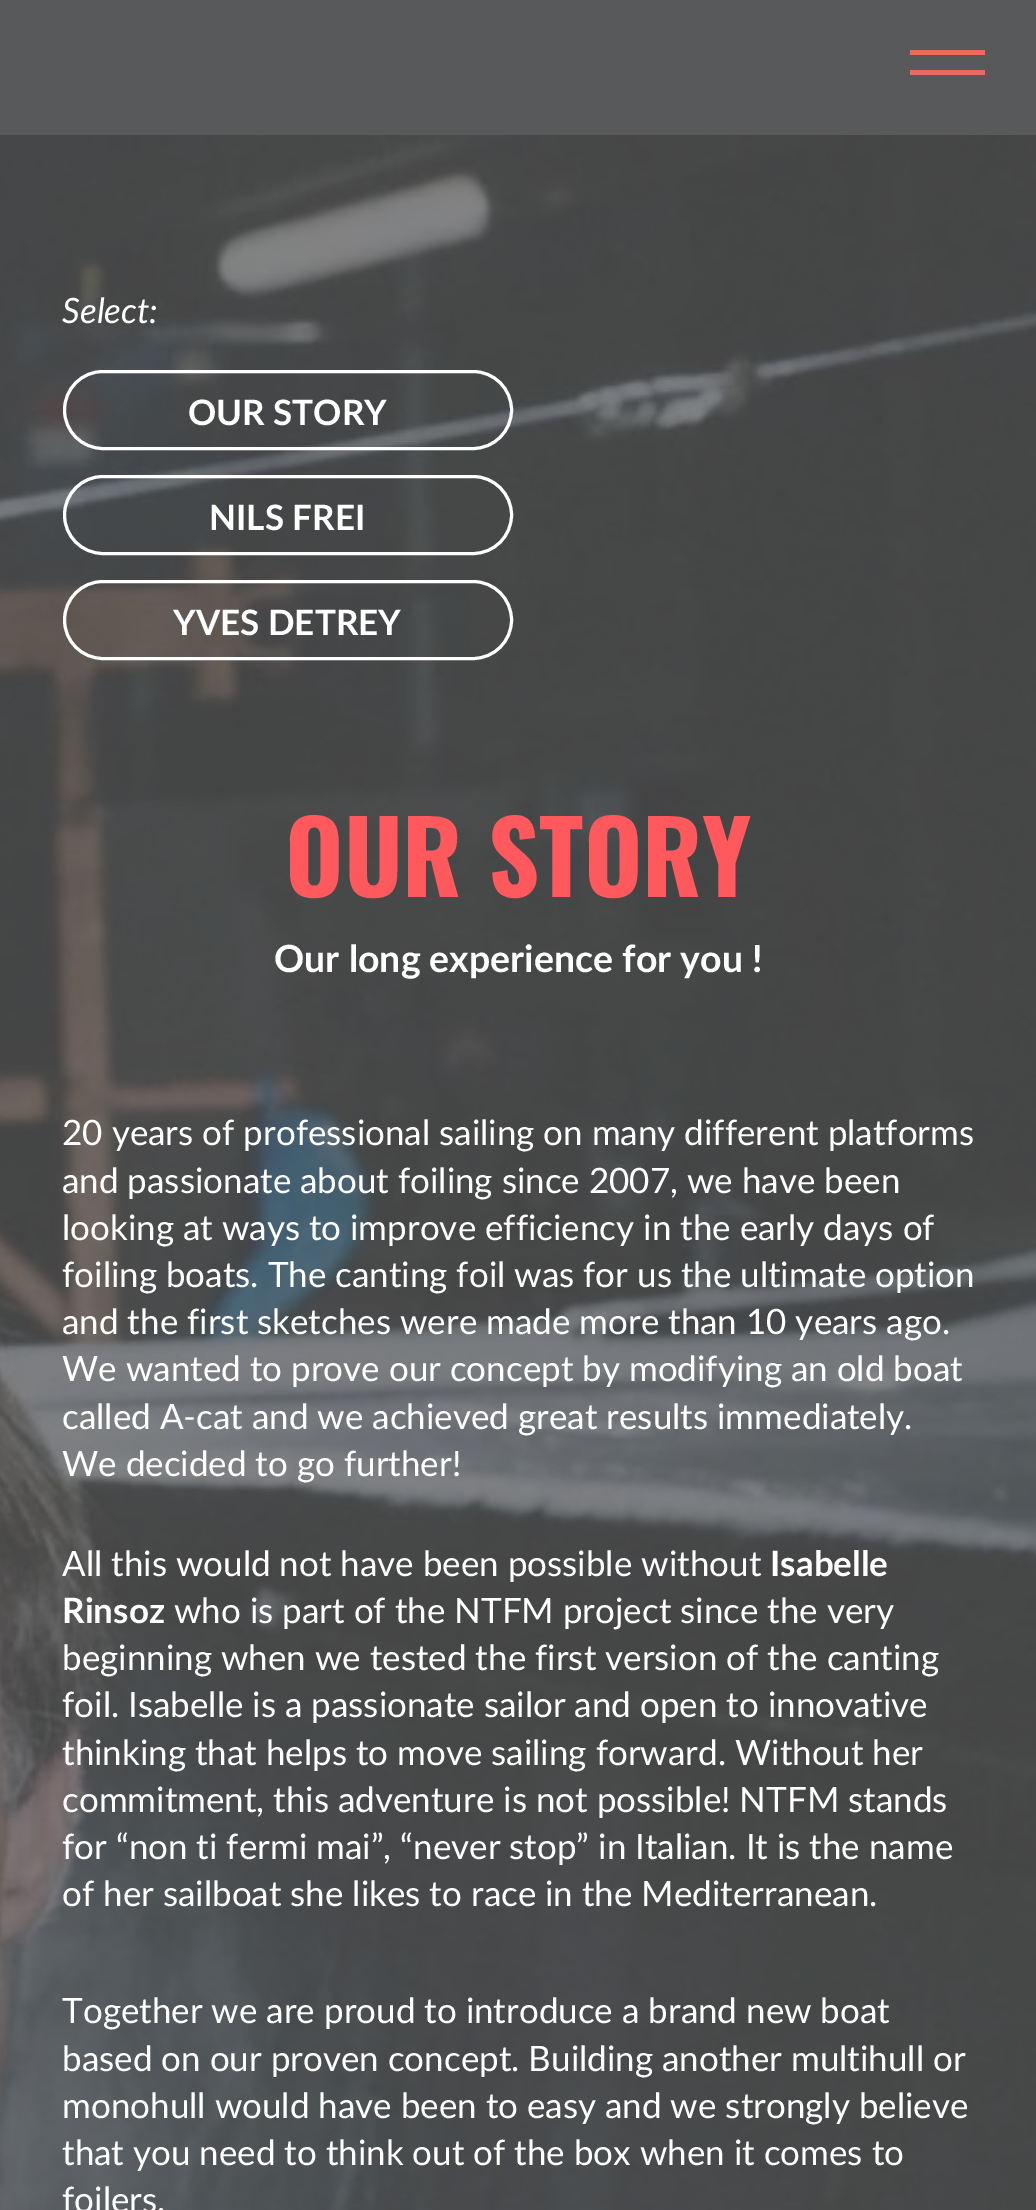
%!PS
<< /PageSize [1036 2210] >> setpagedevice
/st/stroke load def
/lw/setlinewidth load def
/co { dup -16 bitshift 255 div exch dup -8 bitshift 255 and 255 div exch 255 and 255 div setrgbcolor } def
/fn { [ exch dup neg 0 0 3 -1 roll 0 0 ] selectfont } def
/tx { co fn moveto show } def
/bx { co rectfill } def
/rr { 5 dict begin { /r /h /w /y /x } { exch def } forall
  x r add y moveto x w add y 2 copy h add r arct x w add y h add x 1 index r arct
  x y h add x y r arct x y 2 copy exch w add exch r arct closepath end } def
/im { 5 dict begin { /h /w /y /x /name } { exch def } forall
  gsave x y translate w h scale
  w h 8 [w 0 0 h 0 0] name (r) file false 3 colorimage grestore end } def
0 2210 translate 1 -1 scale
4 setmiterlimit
0 0 1036 2210 16#FFFFFF bx
0 0 1036 135 16#58595B bx
910 50 75 5 16#ED6B5E bx
910 70 75 5 16#ED6B5E bx
(media/1.raw) 0 135 1036 2075 im
16#FFFFFF co
3 lw
64.5 371.5 447 77 38.5 rr st
64.5 476.5 447 77 38.5 rr st
64.5 581.5 447 77 38.5 rr st
(Select:) 62 323 /Lato-Italic 35 16#FFFFFF tx
(OUR STORY) 188 425 /Lato-Bold 35 16#FFFFFF tx
(NILS FREI) 209 530 /Lato-Bold 35 16#FFFFFF tx
(YVES DETREY) 173 635 /Lato-Bold 35 16#FFFFFF tx
(OUR STORY) 285 897 /Oswald-Bold 100 16#FF585D tx
(Our long experience for you !) 274 972 /Lato-Bold 37.5 16#FFFFFF tx
(20 years of professional sailing on many different platforms) 62 1145 /Lato-Regular 35 16#FFFFFF tx
(and passionate about foiling since 2007, we have been) 62 1193 /Lato-Regular 35 16#FFFFFF tx
(looking at ways to improve efficiency in the early days of) 62 1240 /Lato-Regular 35 16#FFFFFF tx
(foiling boats. The canting foil was for us the ultimate option) 62 1287 /Lato-Regular 35 16#FFFFFF tx
(and the first sketches were made more than 10 years ago.) 62 1334 /Lato-Regular 35 16#FFFFFF tx
(We wanted to prove our concept by modifying an old boat) 62 1381 /Lato-Regular 35 16#FFFFFF tx
(called A-cat and we achieved great results immediately.) 62 1429 /Lato-Regular 35 16#FFFFFF tx
(We decided to go further!) 62 1476 /Lato-Regular 35 16#FFFFFF tx
(All this would not have been possible without) 62 1576 /Lato-Regular 35 16#FFFFFF tx
(Isabelle) 770 1576 /Lato-Bold 35 16#FFFFFF tx
(Rinsoz) 62 1623 /Lato-Bold 35 16#FFFFFF tx
(who is part of the NTFM project since the very) 174 1623 /Lato-Regular 35 16#FFFFFF tx
(beginning when we tested the first version of the canting) 62 1670 /Lato-Regular 35 16#FFFFFF tx
(foil. Isabelle is a passionate sailor and open to innovative) 62 1717 /Lato-Regular 35 16#FFFFFF tx
(thinking that helps to move sailing forward. Without her) 62 1765 /Lato-Regular 35 16#FFFFFF tx
(commitment, this adventure is not possible! NTFM stands) 62 1812 /Lato-Regular 35 16#FFFFFF tx
(for “non ti fermi mai”, “never stop” in Italian. It is the name) 62 1859 /Lato-Regular 35 16#FFFFFF tx
(of her sailboat she likes to race in the Mediterranean.) 62 1906 /Lato-Regular 35 16#FFFFFF tx
(Together we are proud to introduce a brand new boat) 62 2023 /Lato-Regular 35 16#FFFFFF tx
(based on our proven concept. Building another multihull or) 62 2071 /Lato-Regular 35 16#FFFFFF tx
(monohull would have been to easy and we strongly believe) 62 2118 /Lato-Regular 35 16#FFFFFF tx
(that you need to think out of the box when it comes to) 62 2165 /Lato-Regular 35 16#FFFFFF tx
(foilers.) 62 2212 /Lato-Regular 35 16#FFFFFF tx
showpage
